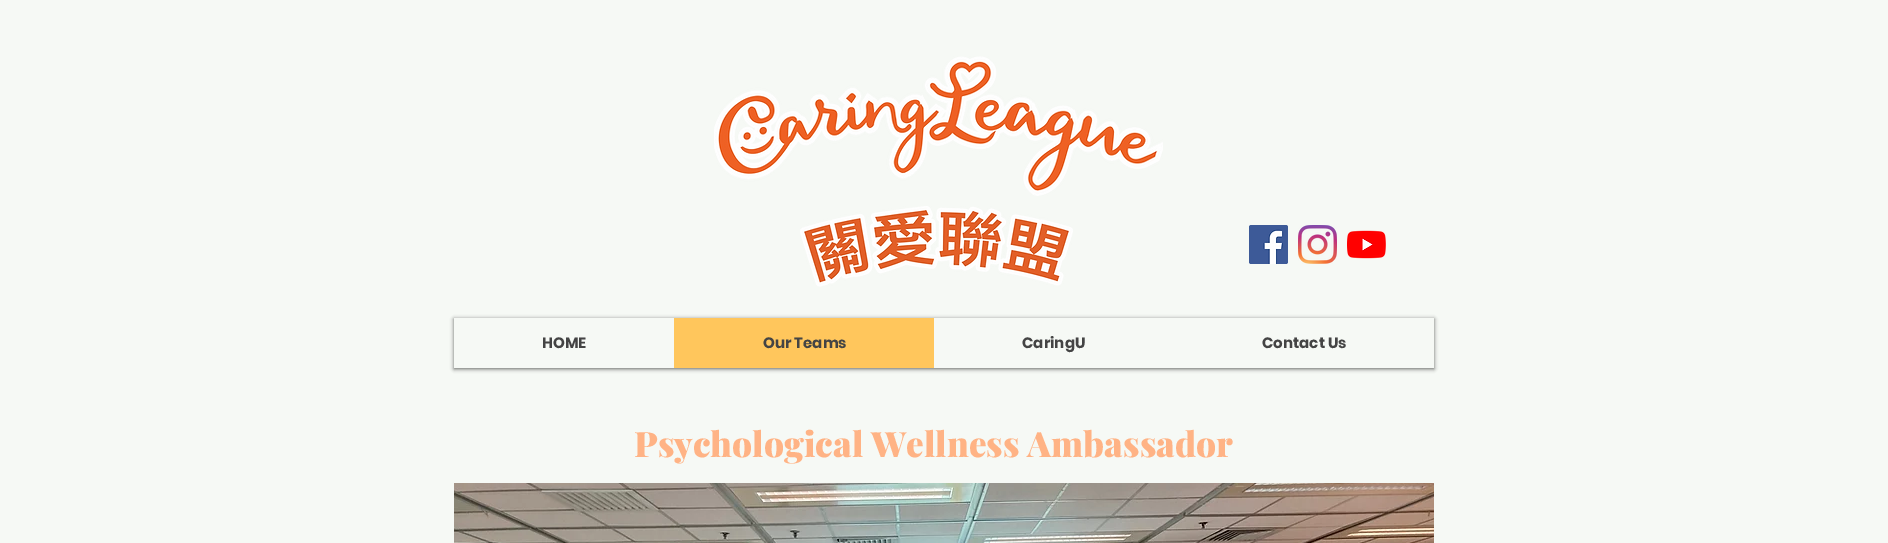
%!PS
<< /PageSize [1888 543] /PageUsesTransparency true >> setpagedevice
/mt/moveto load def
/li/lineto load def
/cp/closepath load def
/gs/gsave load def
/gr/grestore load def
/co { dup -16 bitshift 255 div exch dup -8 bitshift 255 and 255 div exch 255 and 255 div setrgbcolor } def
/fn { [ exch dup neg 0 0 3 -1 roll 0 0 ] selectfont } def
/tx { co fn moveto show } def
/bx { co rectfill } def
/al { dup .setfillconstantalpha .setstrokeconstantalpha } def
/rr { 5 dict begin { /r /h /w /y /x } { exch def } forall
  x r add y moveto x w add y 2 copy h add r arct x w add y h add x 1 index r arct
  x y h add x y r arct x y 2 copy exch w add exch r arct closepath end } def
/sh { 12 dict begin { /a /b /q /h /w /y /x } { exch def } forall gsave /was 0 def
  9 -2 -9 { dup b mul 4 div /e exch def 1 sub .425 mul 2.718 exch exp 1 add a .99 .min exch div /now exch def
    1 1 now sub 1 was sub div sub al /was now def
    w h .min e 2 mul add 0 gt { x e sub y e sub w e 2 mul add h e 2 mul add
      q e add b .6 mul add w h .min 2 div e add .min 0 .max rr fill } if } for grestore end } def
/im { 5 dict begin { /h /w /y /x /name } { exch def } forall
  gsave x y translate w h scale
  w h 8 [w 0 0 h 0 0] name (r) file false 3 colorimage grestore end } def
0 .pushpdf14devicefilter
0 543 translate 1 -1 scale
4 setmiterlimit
0 0 1888 543 16#F6F9F5 bx
(media/1.raw) 714 56 449 140 im
(media/2.raw) 800 206 273 81 im
(media/3.raw) 1249 225 39 39 im
(media/4.raw) 1298 225 39 39 im
(media/5.raw) 1347 230 39 29 im
gs
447 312 mt 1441 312 li 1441 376 li 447 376 li cp 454 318 mt 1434 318 li 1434 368 li 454 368 li cp eoclip newpath
16#000000 co
454 319 980 50 0 2 .6 sh
gr
674 318 260 50 16#FFC65C bx
(media/6.raw) 454 483 980 60 im
(HOME) 542 348 /Poppins-Bold 15 16#444444 tx
(Our Teams) 763 348 /Poppins-Bold 15 16#444444 tx
(CaringU) 1022 348 /Poppins-Bold 15 16#444444 tx
(Contact Us) 1262 348 /Poppins-Bold 15 16#444444 tx
(Psychological Wellness Ambassador) 634 457 /PlayfairDisplay-Black 35 16#FFB385 tx
.poppdf14devicefilter showpage
